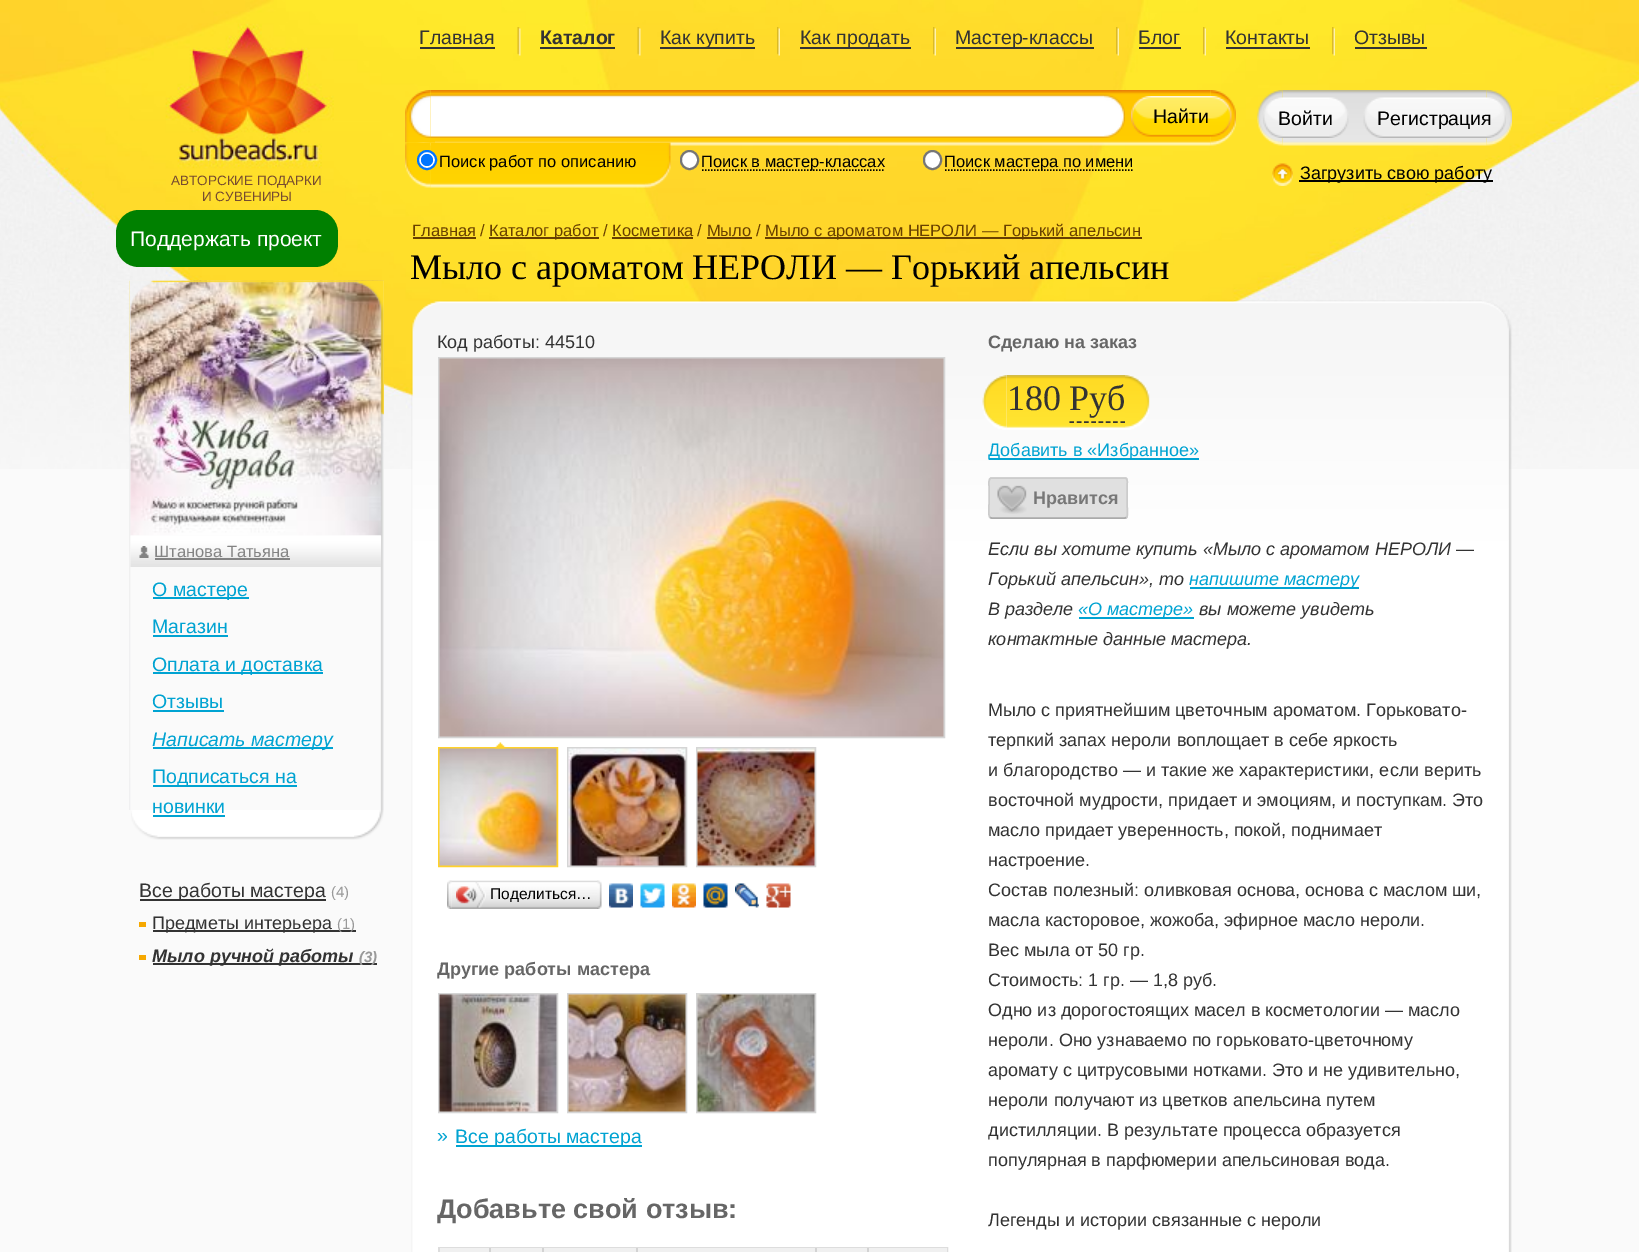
%!PS
<< /PageSize [1639 1252] >> setpagedevice
/mt/moveto load def
/li/lineto load def
/ct/curveto load def
/cp/closepath load def
/fl/fill load def
/st/stroke load def
/gs/gsave load def
/gr/grestore load def
/lw/setlinewidth load def
/co { dup -16 bitshift 255 div exch dup -8 bitshift 255 and 255 div exch 255 and 255 div setrgbcolor } def
/fn { [ exch dup neg 0 0 3 -1 roll 0 0 ] selectfont } def
/tx { co fn moveto show } def
/bx { co rectfill } def
/ci { newpath 0 360 arc closepath } def
/rr { 5 dict begin { /r /h /w /y /x } { exch def } forall
  x r add y moveto x w add y 2 copy h add r arct x w add y h add x 1 index r arct
  x y h add x y r arct x y 2 copy exch w add exch r arct closepath end } def
/im { 5 dict begin { /h /w /y /x /name } { exch def } forall
  gsave x y translate w h scale
  w h 8 [w 0 0 h 0 0] name (r) file false 3 colorimage grestore end } def
0 1252 translate 1 -1 scale
4 setmiterlimit
0 0 1639 1252 16#FAFAFA bx
(media/1.raw) 0 0 1639 469 im
420 47 75 2 16#333333 bx
(media/2.raw) 517 27 4 29 im
540 47 75 2 16#333333 bx
(media/3.raw) 637 27 4 29 im
660 47 95 2 16#333333 bx
(media/4.raw) 777 27 3 29 im
800 47 111 2 16#333333 bx
(media/5.raw) 933 27 3 29 im
956 47 138 2 16#333333 bx
(media/6.raw) 1116 27 3 29 im
1139 47 42 2 16#333333 bx
(media/7.raw) 1203 27 3 29 im
1226 47 84 2 16#333333 bx
(media/8.raw) 1332 27 3 29 im
1355 47 72 2 16#333333 bx
(media/9.raw) 430 90 781 56 im
(media/10.raw) 405 90 26 56 im
(media/16.raw) 430 142 215 46 im
(media/17.raw) 405 112 30 31 im
(media/11.raw) 430 94 674 44 im
(media/12.raw) 409 94 22 44 im
(media/13.raw) 1104 94 21 44 im
(media/15.raw) 1210 90 26 56 im
(media/14.raw) 1131 96 101 41 im
(media/18.raw) 405 142 26 46 im
16#FFFFFF co
427 160 9 ci gs fl gr
16#0075FF co
2 lw
st
427 160 6 ci fl
(media/19.raw) 645 142 26 46 im
16#FFFFFF co
681 151 17 18 8.5 rr gs fl gr
16#767676 co
st
16#000000 co
1.5 lw
[1.5 1.5] 0 setdash
702 170 mt 885 170 li st
16#FFFFFF co
924 151 17 18 8.5 rr gs fl gr
16#767676 co
2 lw
[] 0 setdash
st
16#000000 co
1.5 lw
[1.5 1.5] 0 setdash
945 170 mt 1134 170 li st
(media/20.raw) 1282 90 205 56 im
(media/21.raw) 1257 90 26 56 im
(media/22.raw) 1263 97 86 41 im
(media/24.raw) 1486 90 26 56 im
(media/23.raw) 1363 97 143 41 im
(media/25.raw) 1272 163 21 23 im
1299 180 194 2 16#000000 bx
16#008000 co
116 210 222 57 23 rr fl
(media/26.raw) 129 280 255 256 im
(media/27.raw) 129 280 225 530 im
(media/28.raw) 354 280 30 530 im
(media/29.raw) 130 535 251 32 im
(media/30.raw) 139 546 10 12 im
155 558 135 2 16#838383 bx
153 597 96 2 16#00A3D2 bx
153 635 75 2 16#00A3D2 bx
153 672 170 2 16#00A3D2 bx
153 710 71 2 16#00A3D2 bx
153 747 180 2 16#00A3D2 bx
153 785 144 2 16#00A3D2 bx
(media/31.raw) 131 810 223 30 im
153 815 72 2 16#00A3D2 bx
(media/32.raw) 354 810 30 30 im
140 899 186 2 16#333333 bx
139 922 7 5 16#F6A800 bx
153 930 203 2 16#333333 bx
139 955 7 5 16#F6A800 bx
153 963 224 2 16#333333 bx
413 237 63 2 16#694000 bx
489 237 110 2 16#694000 bx
765 237 377 2 16#694000 bx
612 237 81 2 16#694000 bx
707 237 45 2 16#694000 bx
(media/33.raw) 411 300 1071 952 im
(media/34.raw) 1482 301 30 951 im
16#D5D5D5 co
2 lw
[] 0 setdash
439 358 505 379 rectstroke
(media/35.raw) 439 358 505 379 im
16#FFD22A co
439 748 118 118 rectstroke
(media/37.raw) 439 748 118 118 im
(media/36.raw) 495 742 11 7 im
16#D5D5D5 co
568 748 118 118 rectstroke
(media/38.raw) 568 748 118 118 im
697 748 118 118 rectstroke
(media/39.raw) 697 748 118 118 im
(media/40.raw) 451 880 146 29 im
(media/41.raw) 447 880 5 29 im
(media/42.raw) 456 882 30 26 im
(media/43.raw) 597 880 5 29 im
(media/44.raw) 609 883 24 25 im
(media/45.raw) 640 883 25 25 im
(media/46.raw) 672 883 24 25 im
(media/47.raw) 703 883 25 25 im
(media/48.raw) 735 883 24 25 im
(media/49.raw) 766 883 25 25 im
439 994 118 118 rectstroke
(media/50.raw) 439 994 118 118 im
568 994 118 118 rectstroke
(media/51.raw) 568 994 118 118 im
697 994 118 118 rectstroke
(media/52.raw) 697 994 118 118 im
456 1145 186 2 16#00A3D2 bx
16#DDDDDD co
439 1248 508 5 rectstroke
gs 440 1248 mt 947 1248 li 947 1252 li 440 1252 li cp clip newpath
<< /ShadingType 2 /ColorSpace /DeviceRGB /Coords [693 1248 693 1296] /Extend [true true] /Function << /FunctionType 2 /Domain [0 1] /C0 [.945 .945 .945] /C1 [.886 .886 .886] /N 1 >> >> shfill gr
489 1248 2 4 16#D3D3D3 bx
542 1248 2 4 16#D3D3D3 bx
636 1248 2 4 16#D3D3D3 bx
815 1248 2 4 16#D3D3D3 bx
867 1248 2 4 16#D3D3D3 bx
(media/53.raw) 1006 375 119 55 im
(media/54.raw) 982 375 25 55 im
16#333333 co
1.5 lw
[4.5 2.79] 0 setdash
1069.5 422 mt 1125 422 li st
(media/55.raw) 1125 375 25 55 im
989 458 210 2 16#00A3D2 bx
16#E0E0E0 co
989 477 139 42 3 rr fl
16#AAAAAA co
[] 0 setdash
1126.5 517.5 mt 1125 518 li 991.5 518 li 990 517.5 li st
16#CCCCCC co
990 517.5 mt 988 515.5 989 506.5 989 504 ct 989 486 li 989 485 988 478 991.5 478 ct 1125 478 li 1128.5 478 1127 485 1127 486 ct 1127 504 li 1127 506.5 1128.5 515.5 1126.5 517.5 ct st
(media/56.raw) 997 485 30 29 im
1190 587 169 2 16#00A3D2 bx
1079 617 115 2 16#00A3D2 bx
(Главная) 419 44 /LiberationSans-Regular 19.5 16#333333 tx
(Каталог) 540 44 /LiberationSans-Bold 19.5 16#333333 tx
(Как купить) 660 44 /LiberationSans-Regular 19.5 16#333333 tx
(Как продать) 800 44 /LiberationSans-Regular 19.5 16#333333 tx
(Мастер-классы) 955 44 /LiberationSans-Regular 19.5 16#333333 tx
(Блог) 1138 44 /LiberationSans-Regular 19.5 16#333333 tx
(Контакты) 1225 44 /LiberationSans-Regular 19.5 16#333333 tx
(Отзывы) 1354 44 /LiberationSans-Regular 19.5 16#333333 tx
(Найти) 1153 123 /LiberationSans-Regular 19.5 16#000000 tx
(Поиск работ по описанию) 439 167 /LiberationSans-Regular 16.5 16#000000 tx
(Поиск в мастер-классах) 701 167 /LiberationSans-Regular 16.5 16#000000 tx
(Поиск мастера по имени) 944 167 /LiberationSans-Regular 16.5 16#000000 tx
(Войти) 1278 125 /LiberationSans-Regular 19.5 16#000000 tx
(Регистрация) 1377 125 /LiberationSans-Regular 19.5 16#000000 tx
(АВТОРСКИЕ ПОДАРКИ) 171 185 /LiberationSans-Regular 13.5 16#774C30 tx
(И СУВЕНИРЫ) 202 201 /LiberationSans-Regular 13.5 16#774C30 tx
(Загрузить свою работу) 1300 179 /LiberationSans-Regular 18 16#000000 tx
(Поддержать проект) 130 246 /LiberationSans-Regular 21 16#FFFFFF tx
(Штанова Татьяна) 154 557 /LiberationSans-Regular 16.5 16#838383 tx
(О мастере) 152 596 /LiberationSans-Regular 19.5 16#00A3D2 tx
(Магазин) 152 633 /LiberationSans-Regular 19.5 16#00A3D2 tx
(Оплата и доставка) 152 671 /LiberationSans-Regular 19.5 16#00A3D2 tx
(Отзывы) 152 708 /LiberationSans-Regular 19.5 16#00A3D2 tx
(Написать мастеру) 152 746 /LiberationSans-Italic 19.5 16#00A3D2 tx
(Подписаться на) 152 783 /LiberationSans-Regular 19.5 16#00A3D2 tx
(новинки) 152 813 /LiberationSans-Regular 19.5 16#00A3D2 tx
(Все работы мастера) 139 897 /LiberationSans-Regular 19.5 16#333333 tx
(\(4\)) 331 897 /LiberationSans-Regular 15 16#999999 tx
(Предметы интерьера) 152 929 /LiberationSans-Regular 18 16#333333 tx
(\(1\)) 337 929 /LiberationSans-Regular 15 16#999999 tx
(Мыло ручной работы) 152 962 /LiberationSans-BoldItalic 18 16#333333 tx
(\(3\)) 359 962 /LiberationSans-BoldItalic 15 16#999999 tx
(Главная /) 412 236 /LiberationSans-Regular 16.5 16#694000 tx
(Каталог работ / Косметика / Мыло /) 489 236 /LiberationSans-Regular 16.5 16#694000 tx
(Мыло с ароматом НЕРОЛИ — Горький апельсин) 765 236 /LiberationSans-Regular 16.5 16#694000 tx
(Мыло с ароматом НЕРОЛИ — Горький апельсин) 410 279 /LiberationSerif-Regular 36 16#000000 tx
(Код работы: 44510) 437 348 /LiberationSans-Regular 18 16#333333 tx
(Поделиться…) 490 899 /LiberationSans-Regular 15.5 16#000000 tx
(Другие работы мастера) 437 975 /LiberationSans-Bold 18 16#666666 tx
(») 437 1142 /LiberationSans-Regular 19.5 16#00A3D2 tx
(Все работы мастера) 455 1143 /LiberationSans-Regular 19.5 16#00A3D2 tx
(Добавьте свой отзыв:) 437 1218 /LiberationSans-Bold 27 16#666666 tx
(Сделаю на заказ) 988 348 /LiberationSans-Bold 18 16#666666 tx
(180) 1007 410 /LiberationSerif-Regular 36 16#333333 tx
(Руб) 1069 410 /LiberationSerif-Regular 36 16#333333 tx
(Добавить в «Избранное») 988 456 /LiberationSans-Regular 18 16#00A3D2 tx
(Нравится) 1033 504 /LiberationSans-Bold 18 16#777777 tx
(Если вы хотите купить «Мыло с ароматом НЕРОЛИ —) 988 555 /LiberationSans-Italic 18 16#333333 tx
(Горький апельсин», то) 988 585 /LiberationSans-Italic 18 16#333333 tx
(напишите мастеру) 1189 585 /LiberationSans-Italic 18 16#00A3D2 tx
(В разделе) 988 615 /LiberationSans-Italic 18 16#333333 tx
(«О мастере») 1078 615 /LiberationSans-Italic 18 16#00A3D2 tx
(вы можете увидеть) 1199 615 /LiberationSans-Italic 18 16#333333 tx
(контактные данные мастера.) 988 645 /LiberationSans-Italic 18 16#333333 tx
(Мыло с приятнейшим цветочным ароматом. Горьковато-) 988 716 /LiberationSans-Regular 18 16#333333 tx
(терпкий запах нероли воплощает в себе яркость) 988 746 /LiberationSans-Regular 18 16#333333 tx
(и благородство — и такие же характеристики, если верить) 988 776 /LiberationSans-Regular 18 16#333333 tx
(восточной мудрости, придает и эмоциям, и поступкам. Это) 988 806 /LiberationSans-Regular 18 16#333333 tx
(масло придает уверенность, покой, поднимает) 988 836 /LiberationSans-Regular 18 16#333333 tx
(настроение.) 988 866 /LiberationSans-Regular 18 16#333333 tx
(Состав полезный: оливковая основа, основа с маслом ши,) 988 896 /LiberationSans-Regular 18 16#333333 tx
(масла касторовое, жожоба, эфирное масло нероли.) 988 926 /LiberationSans-Regular 18 16#333333 tx
(Вес мыла от 50 гр.) 988 956 /LiberationSans-Regular 18 16#333333 tx
(Стоимость: 1 гр. — 1,8 руб.) 988 986 /LiberationSans-Regular 18 16#333333 tx
(Одно из дорогостоящих масел в косметологии — масло) 988 1016 /LiberationSans-Regular 18 16#333333 tx
(нероли. Оно узнаваемо по горьковато-цветочному) 988 1046 /LiberationSans-Regular 18 16#333333 tx
(аромату с цитрусовыми нотками. Это и не удивительно,) 988 1076 /LiberationSans-Regular 18 16#333333 tx
(нероли получают из цветков апельсина путем) 988 1106 /LiberationSans-Regular 18 16#333333 tx
(дистилляции. В результате процесса образуется) 988 1136 /LiberationSans-Regular 18 16#333333 tx
(популярная в парфюмерии апельсиновая вода.) 988 1166 /LiberationSans-Regular 18 16#333333 tx
(Легенды и истории связанные с нероли) 988 1226 /LiberationSans-Regular 18 16#333333 tx
showpage
